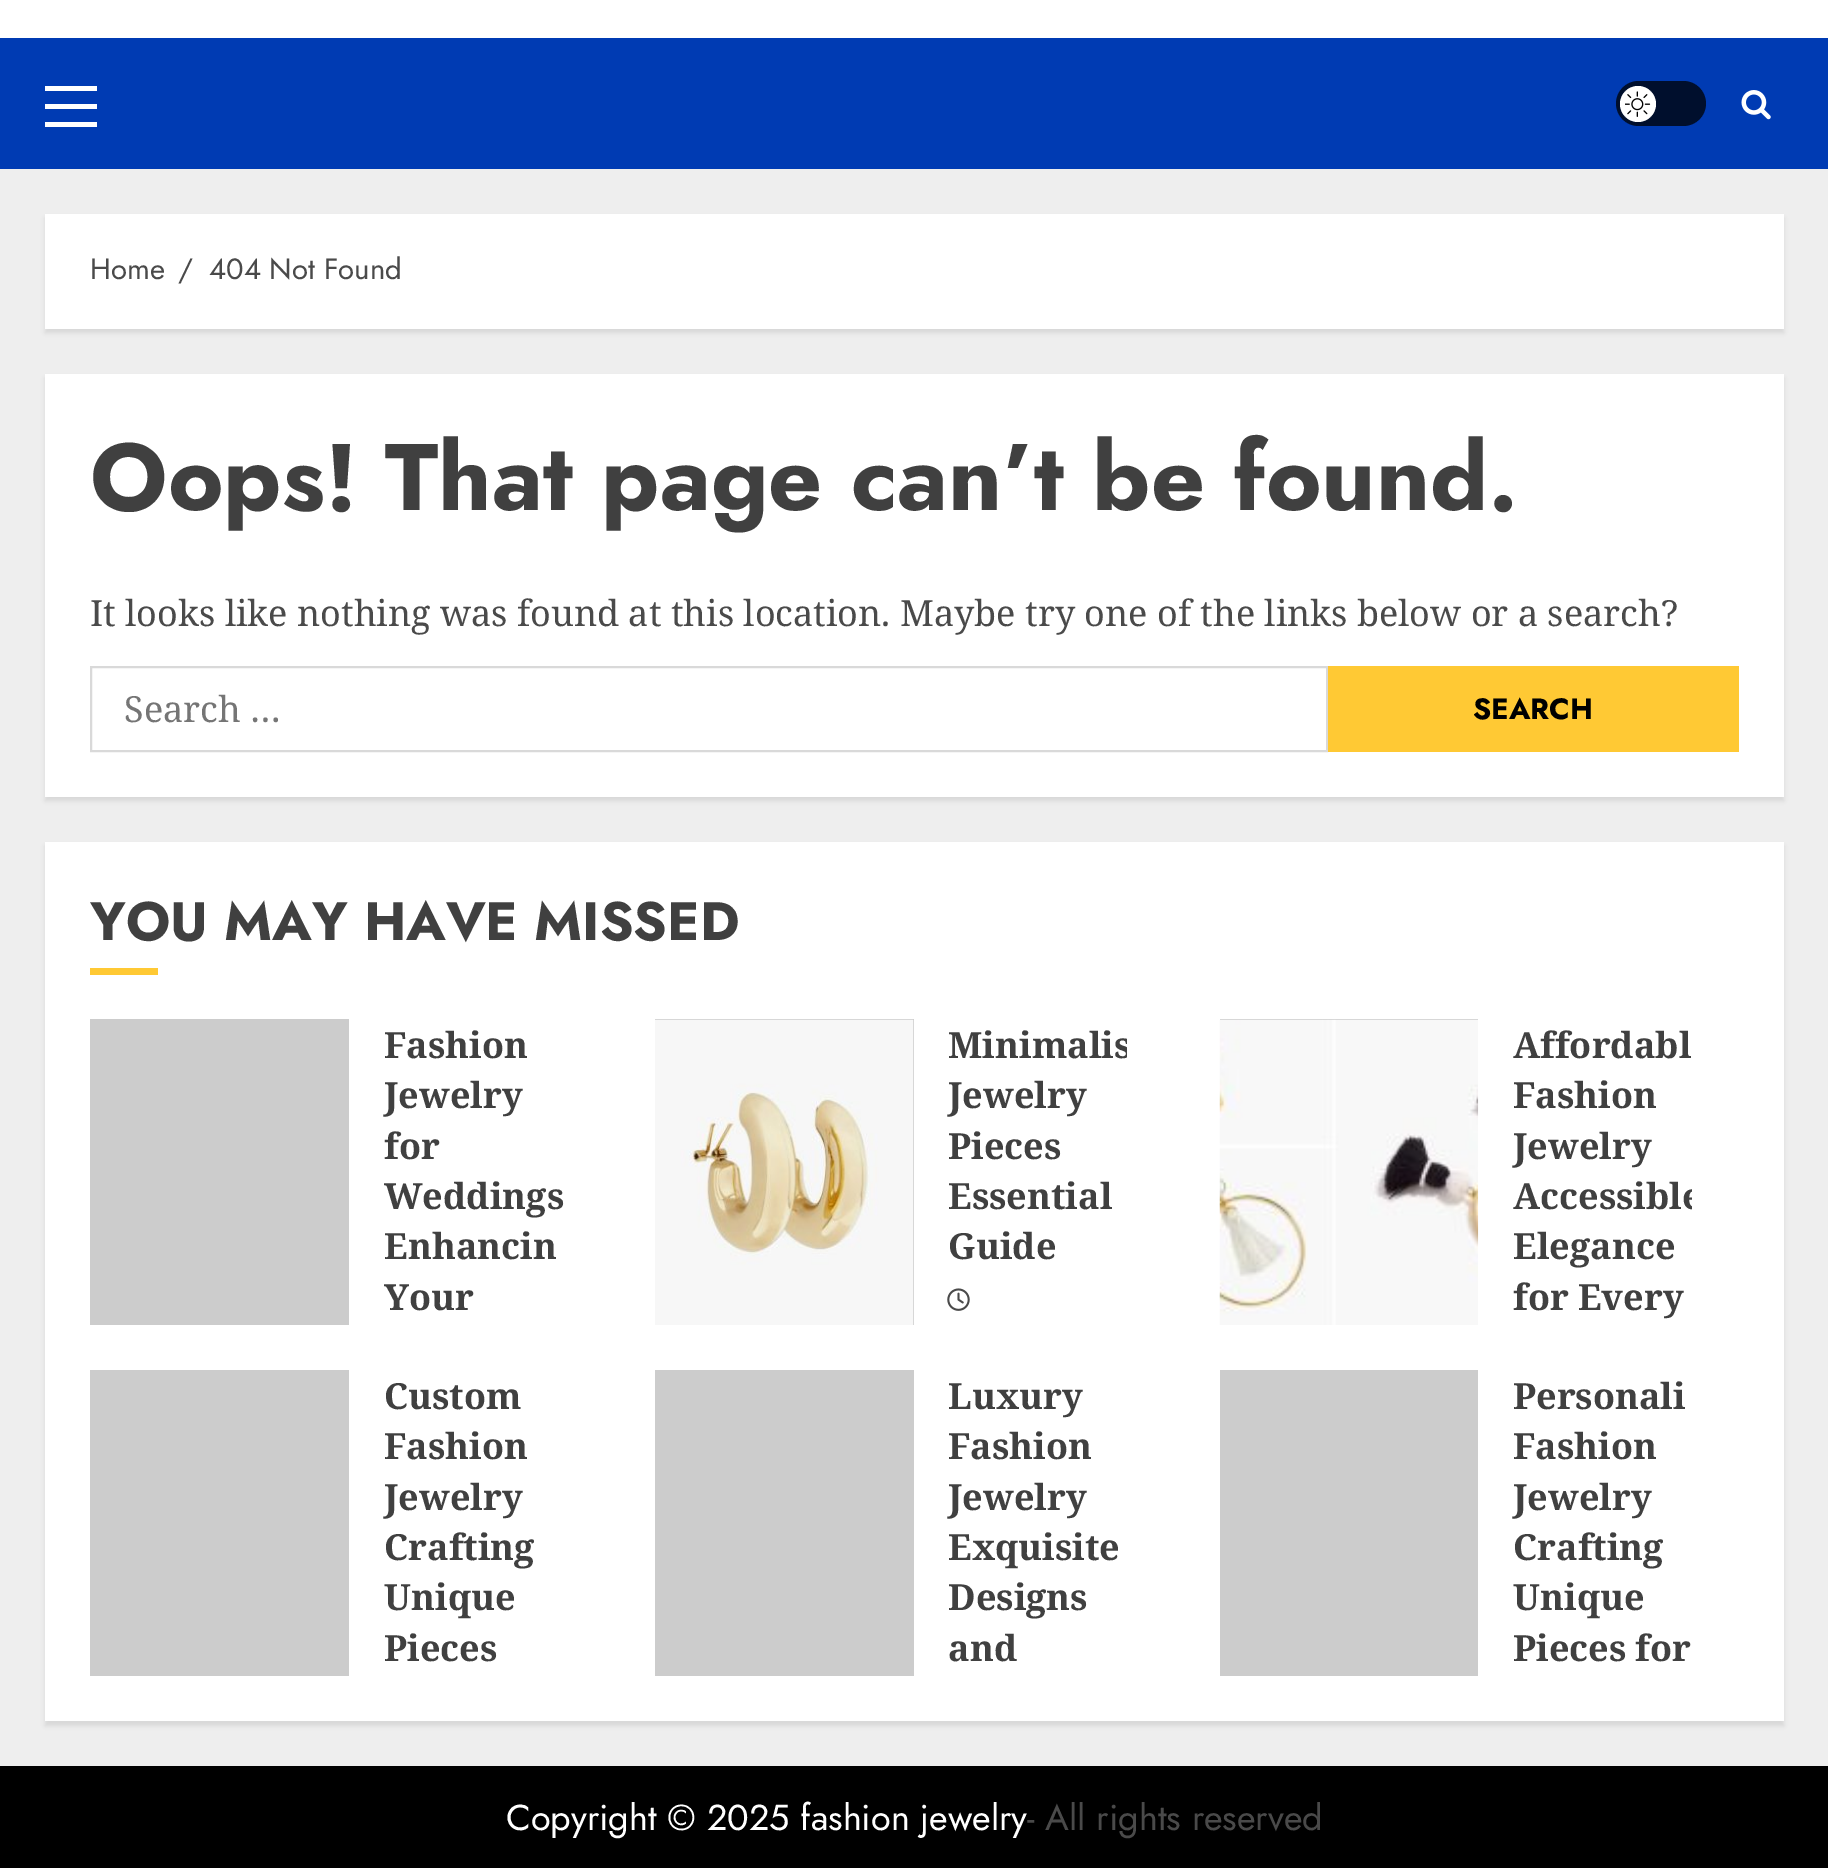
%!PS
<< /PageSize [1828 1868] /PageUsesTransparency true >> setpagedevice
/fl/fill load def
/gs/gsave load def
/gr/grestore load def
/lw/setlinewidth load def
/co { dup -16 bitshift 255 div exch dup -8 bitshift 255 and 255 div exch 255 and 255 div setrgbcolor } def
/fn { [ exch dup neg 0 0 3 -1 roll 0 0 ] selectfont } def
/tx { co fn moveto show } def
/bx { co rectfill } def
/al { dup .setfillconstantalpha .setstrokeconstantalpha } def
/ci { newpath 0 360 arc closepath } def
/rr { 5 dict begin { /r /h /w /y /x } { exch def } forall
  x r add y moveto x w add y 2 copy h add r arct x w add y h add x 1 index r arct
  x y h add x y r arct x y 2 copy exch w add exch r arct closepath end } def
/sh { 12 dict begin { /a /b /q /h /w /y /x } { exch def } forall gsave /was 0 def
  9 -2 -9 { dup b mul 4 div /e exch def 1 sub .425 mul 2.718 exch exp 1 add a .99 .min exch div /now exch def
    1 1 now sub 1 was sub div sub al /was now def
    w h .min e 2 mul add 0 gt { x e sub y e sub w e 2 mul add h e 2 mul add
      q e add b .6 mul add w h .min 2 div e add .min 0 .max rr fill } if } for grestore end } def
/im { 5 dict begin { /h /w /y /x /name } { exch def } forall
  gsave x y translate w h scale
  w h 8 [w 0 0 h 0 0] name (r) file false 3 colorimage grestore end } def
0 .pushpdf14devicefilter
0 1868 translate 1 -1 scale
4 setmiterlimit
0 0 1828 1868 16#EEEEEE bx
0 0 1828 38 16#FFFFFF bx
0 38 1828 131 16#003BB3 bx
45 104 52 5 16#FFFFFF bx
45 86 52 5 16#FFFFFF bx
45 122 52 5 16#FFFFFF bx
16#000F2D co
1616 81 90 45 22.5 rr fl
16#FFFFFF co
1638 104 18 ci fl
(media/1.raw) 1625 91 26 26 im
(media/2.raw) 1741 90 30 30 im
16#000000 co
45 218 1739 115 0 2 .08 sh
45 214 1739 115 16#FFFFFF bx
16#000000 co
45 378 1739 423 0 2 .08 sh
45 374 1739 423 16#FFFFFF bx
16#D9D9D9 co
2 lw
91 667 1236 84 rectstroke
1328 666 411 86 16#FFC934 bx
16#000000 co
45 846 1739 880 0 2 .08 sh
45 842 1739 879 16#FFFFFF bx
90 968 68 7 16#FFC934 bx
90 1019 259 306 16#CCCCCC bx
655 1019 259 306 16#CCCCCC bx
(media/3.raw) 655 1019 259 306 im
(media/4.raw) 947 1288 23 23 im
1220 1019 258 1 16#CCCCCC bx
(media/5.raw) 1219 1019 260 306 im
90 1370 259 306 16#CCCCCC bx
655 1370 259 306 16#CCCCCC bx
1220 1370 258 306 16#CCCCCC bx
0 1766 1828 102 16#000000 bx
(Home) 90 279 /Jost-Regular 29.25 16#4A4A4A tx
(/) 178 279 /Jost-Regular 29.25 16#4A4A4A tx
(404 Not Found) 209 279 /Jost-Regular 29.25 16#4A4A4A tx
(Oops! That page can’t be found.) 90 510 /Jost-Bold 94.5 16#404040 tx
(It looks like nothing was found at this location. Maybe try one of the links below or a search?) 90 626 /NotoSerif-Regular 36 16#4A4A4A tx
(Search …) 124 722 /NotoSerif-Regular 36 16#757575 tx
(SEARCH) 1473 719 /Jost-Bold 29.25 16#000000 tx
(YOU MAY HAVE MISSED) 90 940 /Jost-Bold 54 16#404040 tx
(Fashion) 384 1058 /NotoSerif-Bold 36 16#404040 tx
(Jewelry) 384 1108 /NotoSerif-Bold 36 16#404040 tx
(for) 384 1159 /NotoSerif-Bold 36 16#404040 tx
(Weddings) 384 1209 /NotoSerif-Bold 36 16#404040 tx
(Enhancin) 384 1259 /NotoSerif-Bold 36 16#404040 tx
(Your) 384 1310 /NotoSerif-Bold 36 16#404040 tx
gs
914 1019 213 306 rectclip
(Minimalis) 948 1058 /NotoSerif-Bold 36 16#404040 tx
gr
(Jewelry) 948 1108 /NotoSerif-Bold 36 16#404040 tx
(Pieces) 948 1159 /NotoSerif-Bold 36 16#404040 tx
(Essential) 948 1209 /NotoSerif-Bold 36 16#404040 tx
(Guide) 948 1259 /NotoSerif-Bold 36 16#404040 tx
(Affordabl) 1513 1058 /NotoSerif-Bold 36 16#404040 tx
(Fashion) 1513 1108 /NotoSerif-Bold 36 16#404040 tx
(Jewelry) 1513 1159 /NotoSerif-Bold 36 16#404040 tx
gs
1478 1019 214 306 rectclip
(Accessible) 1513 1209 /NotoSerif-Bold 36 16#404040 tx
gr
(Elegance) 1513 1259 /NotoSerif-Bold 36 16#404040 tx
(for Every) 1513 1310 /NotoSerif-Bold 36 16#404040 tx
(Custom) 384 1409 /NotoSerif-Bold 36 16#404040 tx
(Fashion) 384 1459 /NotoSerif-Bold 36 16#404040 tx
(Jewelry) 384 1510 /NotoSerif-Bold 36 16#404040 tx
(Crafting) 384 1560 /NotoSerif-Bold 36 16#404040 tx
(Unique) 384 1610 /NotoSerif-Bold 36 16#404040 tx
(Pieces) 384 1661 /NotoSerif-Bold 36 16#404040 tx
(Luxury) 948 1409 /NotoSerif-Bold 36 16#404040 tx
(Fashion) 948 1459 /NotoSerif-Bold 36 16#404040 tx
(Jewelry) 948 1510 /NotoSerif-Bold 36 16#404040 tx
(Exquisite) 948 1560 /NotoSerif-Bold 36 16#404040 tx
(Designs) 948 1610 /NotoSerif-Bold 36 16#404040 tx
(and) 948 1661 /NotoSerif-Bold 36 16#404040 tx
(Personali) 1513 1409 /NotoSerif-Bold 36 16#404040 tx
(Fashion) 1513 1459 /NotoSerif-Bold 36 16#404040 tx
(Jewelry) 1513 1510 /NotoSerif-Bold 36 16#404040 tx
(Crafting) 1513 1560 /NotoSerif-Bold 36 16#404040 tx
(Unique) 1513 1610 /NotoSerif-Bold 36 16#404040 tx
(Pieces for) 1513 1661 /NotoSerif-Bold 36 16#404040 tx
(Copyright © 2025 fashion jewelry) 506 1830 /Jost-Regular 36 16#FFFFFF tx
(- All rights reserved) 1027 1830 /Jost-Regular 36 16#4A4A4A tx
.poppdf14devicefilter showpage
